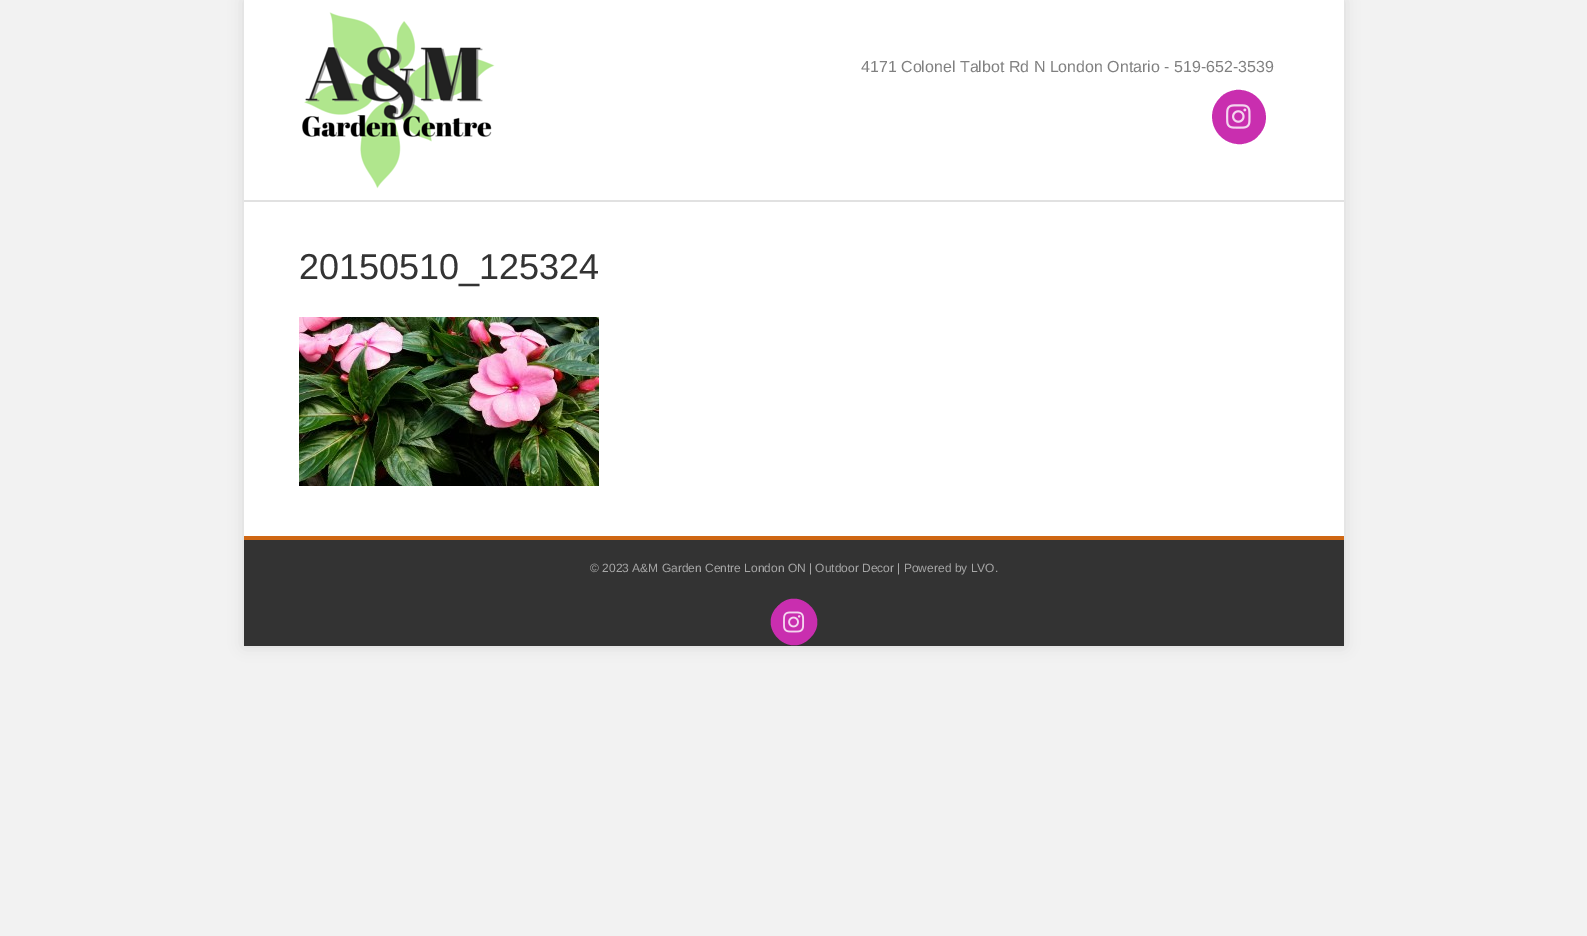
%!PS
<< /PageSize [1587 936] /PageUsesTransparency true >> setpagedevice
/mt/moveto load def
/ct/curveto load def
/cp/closepath load def
/fl/fill load def
/co { dup -16 bitshift 255 div exch dup -8 bitshift 255 and 255 div exch 255 and 255 div setrgbcolor } def
/fn { [ exch dup neg 0 0 3 -1 roll 0 0 ] selectfont } def
/tx { co fn moveto show } def
/bx { co rectfill } def
/al { dup .setfillconstantalpha .setstrokeconstantalpha } def
/rr { 5 dict begin { /r /h /w /y /x } { exch def } forall
  x r add y moveto x w add y 2 copy h add r arct x w add y h add x 1 index r arct
  x y h add x y r arct x y 2 copy exch w add exch r arct closepath end } def
/sh { 12 dict begin { /a /b /q /h /w /y /x } { exch def } forall gsave /was 0 def
  9 -2 -9 { dup b mul 4 div /e exch def 1 sub .425 mul 2.718 exch exp 1 add a .99 .min exch div /now exch def
    1 1 now sub 1 was sub div sub al /was now def
    w h .min e 2 mul add 0 gt { x e sub y e sub w e 2 mul add h e 2 mul add
      q e add b .6 mul add w h .min 2 div e add .min 0 .max rr fill } if } for grestore end } def
/im { 5 dict begin { /h /w /y /x /name } { exch def } forall
  gsave x y translate w h scale
  w h 8 [w 0 0 h 0 0] name (r) file false 3 colorimage grestore end } def
0 .pushpdf14devicefilter
0 936 translate 1 -1 scale
4 setmiterlimit
0 0 1587 936 16#F2F2F2 bx
16#D9D9D9 co
244 0 1100 646 0 7.5 1 sh
244 0 1100 200 16#FFFFFF bx
(media/1.raw) 302 12 193 177 im
16#C92EAF co
1220 98 mt 1224 93 1230 91 1236 90 ct 1261 88 1276 118 1258 136 ct 1254 141 1248 143 1242 144 ct 1217 146 1202 116 1220 98 ct cp fl
(media/2.raw) 1226 104 25 25 im
244 200 1100 2 16#E1E1E1 bx
244 202 1100 334 16#FFFFFF bx
(media/3.raw) 299 317 300 169 im
244 540 1100 106 16#333333 bx
244 536 1100 4 16#CF6713 bx
16#C92EAF co
778 606 mt 799 584 832 617 810 638 ct 789 660 756 627 778 606 ct cp fl
(media/4.raw) 783 611 22 22 im
(4171 Colonel Talbot Rd N London Ontario - 519-652-3539) 861 72 /LiberationSans-Regular 16 16#808080 tx
(20150510_125324) 299 279 /LiberationSans-Regular 36 16#333333 tx
(© 2023 A&M Garden Centre London ON | Outdoor Decor | Powered by LVO.) 590 572 /LiberationSans-Regular 12 16#A6A6A6 tx
.poppdf14devicefilter showpage
